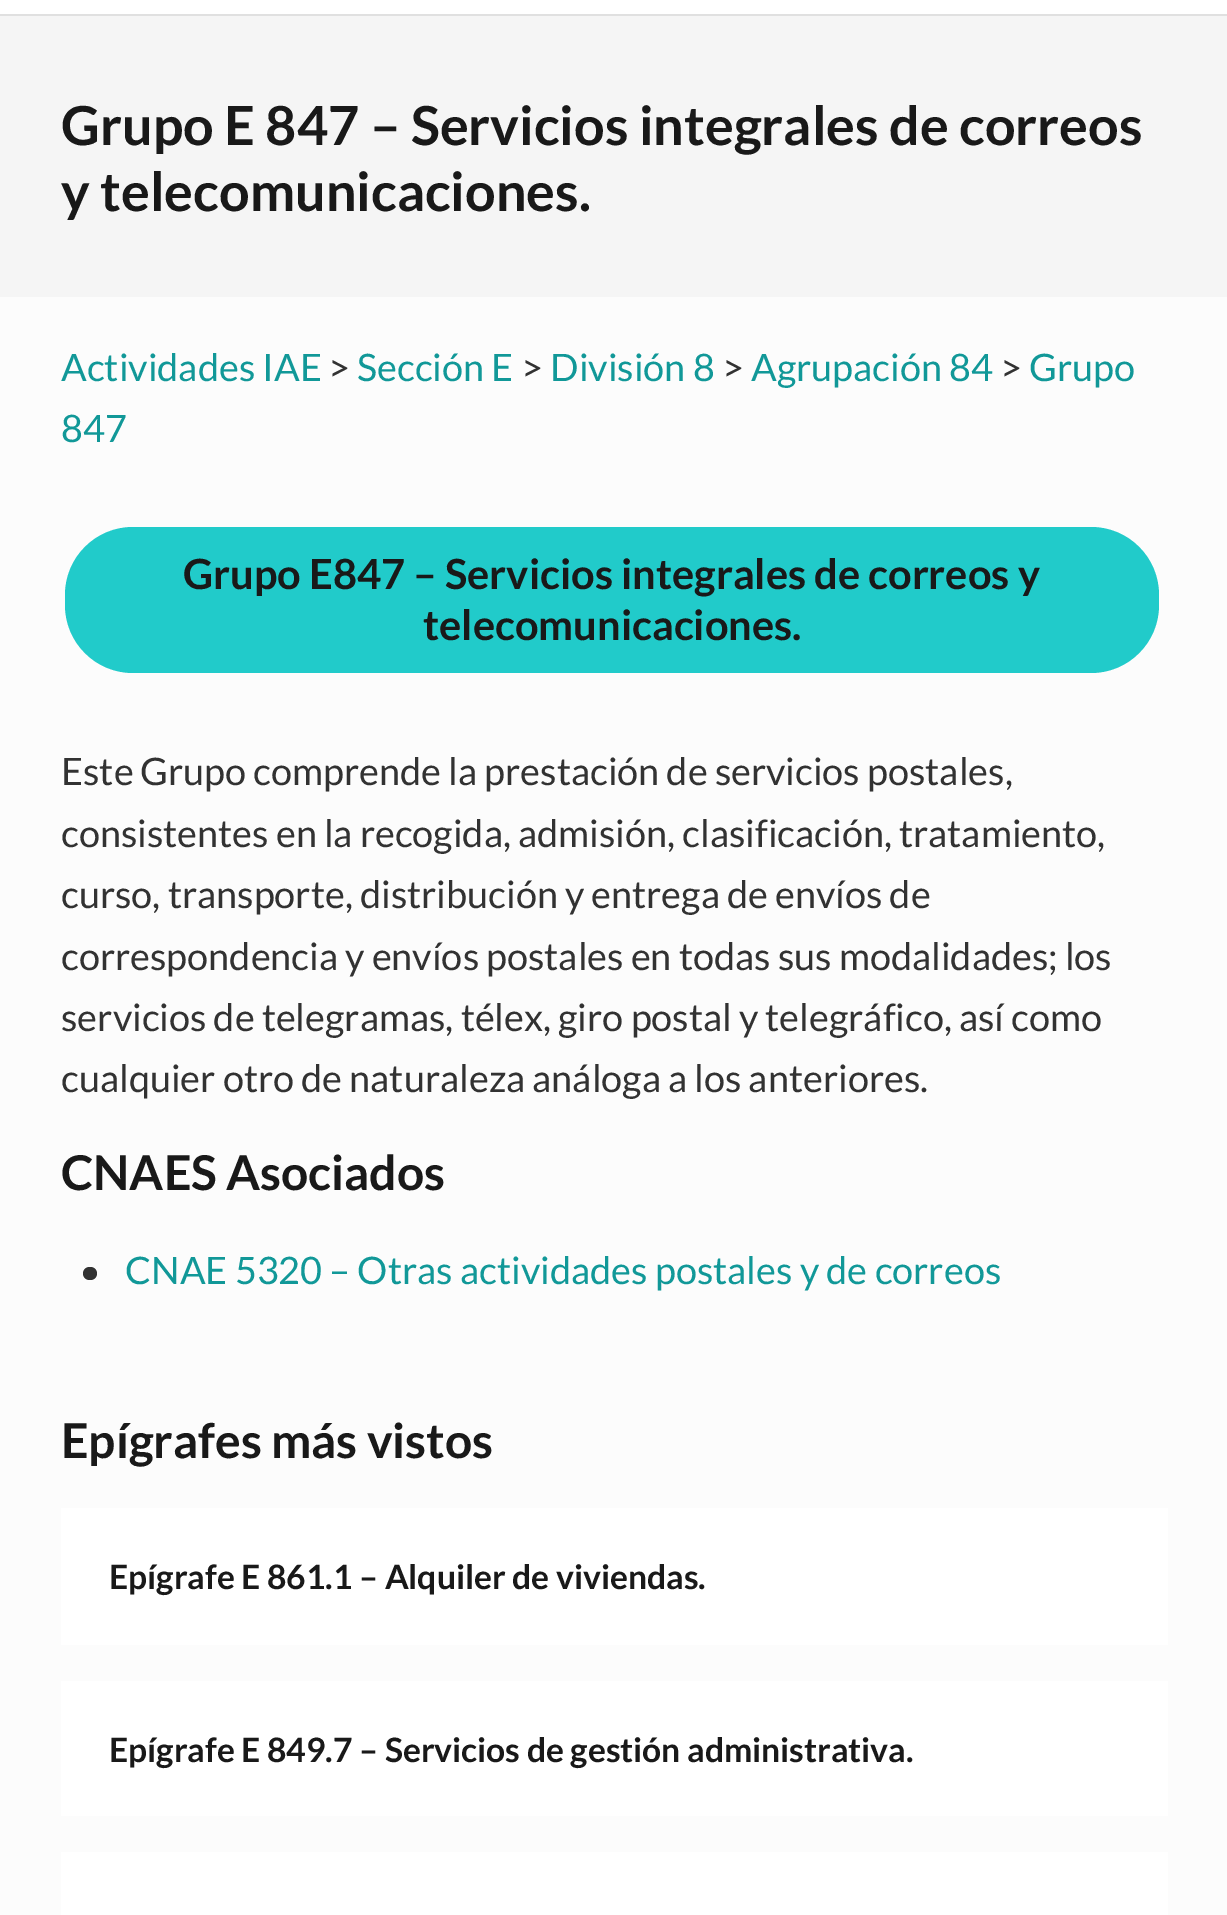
%!PS
<< /PageSize [1227 1915] >> setpagedevice
/mt/moveto load def
/fl/fill load def
/co { dup -16 bitshift 255 div exch dup -8 bitshift 255 and 255 div exch 255 and 255 div setrgbcolor } def
/fn { [ exch dup neg 0 0 3 -1 roll 0 0 ] selectfont } def
/tx { co fn moveto show } def
/bx { co rectfill } def
/rr { 5 dict begin { /r /h /w /y /x } { exch def } forall
  x r add y moveto x w add y 2 copy h add r arct x w add y h add x 1 index r arct
  x y h add x y r arct x y 2 copy exch w add exch r arct closepath end } def
0 1915 translate 1 -1 scale
4 setmiterlimit
0 0 1227 1915 16#FCFCFC bx
0 0 1227 14 16#FFFFFF bx
0 14 1227 2 16#E0E0E0 bx
0 16 1227 281 16#F5F5F5 bx
16#21CBCA co
65 527 1094 146 68 rr fl
16#323232 co
83 1267 14 13 6.5 rr fl
61 1508 1107 137 16#FFFFFF bx
61 1681 1107 135 16#FFFFFF bx
61 1852 1107 63 16#FFFFFF bx
(Grupo E 847 – Servicios integrales de correos) 61 145 /Lato-Bold 53.9 16#191919 tx
(y telecomunicaciones.) 61 211 /Lato-Bold 53.9 16#191919 tx
(Actividades IAE) 61 381 /Lato-Regular 37.85 16#119898 tx
(>) 328 381 /Lato-Regular 37.85 16#323232 tx
(Sección E) 357 381 /Lato-Regular 37.85 16#119898 tx
(>) 521 381 /Lato-Regular 37.85 16#323232 tx
(División 8) 550 381 /Lato-Regular 37.85 16#119898 tx
(>) 722 381 /Lato-Regular 37.85 16#323232 tx
(Agrupación 84) 751 381 /Lato-Regular 37.85 16#119898 tx
(>) 1000 381 /Lato-Regular 37.85 16#323232 tx
(Grupo) 1029 381 /Lato-Regular 37.85 16#119898 tx
(847) 61 442 /Lato-Regular 37.85 16#119898 tx
(Grupo E847 – Servicios integrales de correos y) 183 589 /Lato-Bold 41.6 16#191919 tx
(telecomunicaciones.) 423 640 /Lato-Bold 41.6 16#191919 tx
/Lato-Regular 37.85 fn
16#323232 co
61 785 mt -.25 0 32 (Este Grupo comprende la prestación de servicios postales,) widthshow
61 847 mt -.25 0 32 (consistentes en la recogida, admisión, clasificación, tratamiento,) widthshow
61 908 mt -.25 0 32 (curso, transporte, distribución y entrega de envíos de) widthshow
61 970 mt -.25 0 32 (correspondencia y envíos postales en todas sus modalidades; los) widthshow
61 1031 mt -.25 0 32 (servicios de telegramas, télex, giro postal y telegráfico, así como) widthshow
61 1092 mt -.25 0 32 (cualquier otro de naturaleza análoga a los anteriores.) widthshow
(CNAES Asociados) 61 1190 /Lato-Bold 48 16#191919 tx
(CNAE 5320) 125 1284 /Lato-Regular 37.85 16#119898 tx
(– Otras actividades postales y de correos) 329 1284 /Lato-Regular 37.85 16#119898 tx
(Epígrafes más vistos) 61 1458 /Lato-Bold 48 16#191919 tx
(Epígrafe E 861.1 – Alquiler de viviendas.) 109 1589 /Lato-Bold 33.6 16#191919 tx
(Epígrafe E 849.7 – Servicios de gestión administrativa.) 109 1762 /Lato-Bold 33.6 16#191919 tx
showpage
